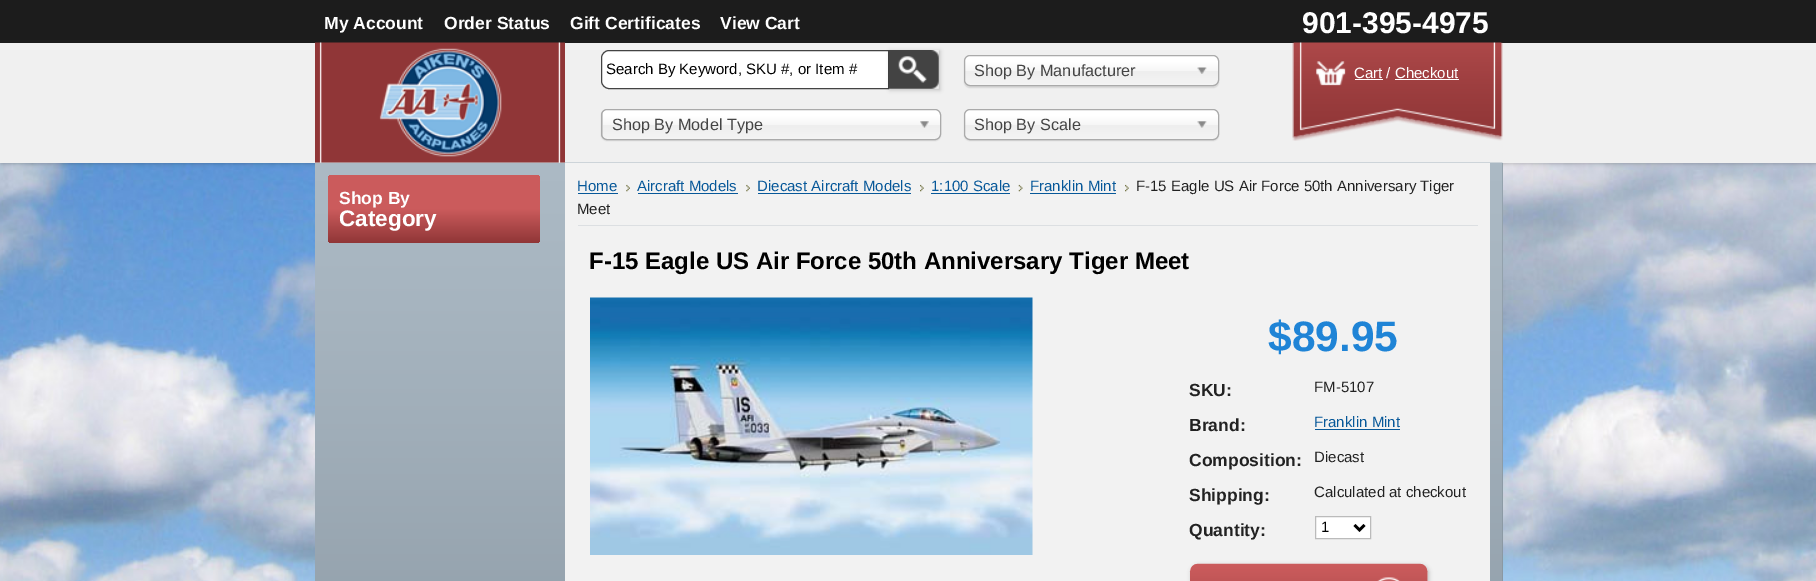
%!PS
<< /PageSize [1816 581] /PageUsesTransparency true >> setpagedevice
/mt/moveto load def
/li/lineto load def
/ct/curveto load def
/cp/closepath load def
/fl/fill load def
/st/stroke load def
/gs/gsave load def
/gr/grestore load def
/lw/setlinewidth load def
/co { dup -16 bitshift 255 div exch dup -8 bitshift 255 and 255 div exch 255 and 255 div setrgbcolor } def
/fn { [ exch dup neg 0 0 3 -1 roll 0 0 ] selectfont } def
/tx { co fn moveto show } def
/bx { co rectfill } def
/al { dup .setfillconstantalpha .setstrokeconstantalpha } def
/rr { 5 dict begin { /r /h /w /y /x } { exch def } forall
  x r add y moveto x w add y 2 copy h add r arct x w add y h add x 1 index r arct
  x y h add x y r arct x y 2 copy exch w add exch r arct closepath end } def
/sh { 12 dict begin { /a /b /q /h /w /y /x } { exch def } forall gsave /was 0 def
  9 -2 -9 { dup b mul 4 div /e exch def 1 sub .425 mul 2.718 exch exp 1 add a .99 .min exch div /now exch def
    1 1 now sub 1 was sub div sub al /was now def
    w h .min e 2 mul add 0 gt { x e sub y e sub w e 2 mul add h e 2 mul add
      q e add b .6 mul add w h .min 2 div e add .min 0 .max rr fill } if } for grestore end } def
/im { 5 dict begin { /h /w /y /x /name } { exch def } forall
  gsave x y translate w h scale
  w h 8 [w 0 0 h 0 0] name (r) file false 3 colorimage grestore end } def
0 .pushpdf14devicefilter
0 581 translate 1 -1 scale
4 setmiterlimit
0 0 1816 581 16#FFFFFF bx
(media/1.raw) 0 163 1816 418 im
16#000000 co
1 44 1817 120 0 2 .2 sh
0 0 1816 43 16#1C1C1C bx
0 43 1816 120 16#F0F0F0 bx
1502 163 1 418 16#7F8C97 bx
(media/8.raw) 315 162 1188 419 im
(media/2.raw) 315 42 250 121 im
16#FFFFFF co
609 50.5 mt 888.5 50.5 li 888.5 88.5 li 609 88.5 li 605 88.5 601.5 85 601.5 81 ct 601.5 58 li 601.5 54 605 50.5 609 50.5 ct cp gs fl gr
16#434343 co
st
gs
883 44 mt 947 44 li 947 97 li 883 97 li cp 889 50 mt 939 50 li 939 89 li 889 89 li cp eoclip newpath
16#000000 co
890 51 50 39 0 2 .2 sh
gr
(media/3.raw) 889 50 50 39 im
16#000000 co
964 56 255 32 6 .5 .1 sh
gs 965 56 253 29 5 rr clip newpath
<< /ShadingType 2 /ColorSpace /DeviceRGB /Coords [1091 56 1091 85] /Extend [true true] /Function << /FunctionType 3 /Domain [0 1] /Functions [<< /FunctionType 2 /Domain [0 1] /C0 [1 1 1] /C1 [1 1 1] /N 1 >> << /FunctionType 2 /Domain [0 1] /C0 [1 1 1] /C1 [.965 .965 .965] /N 1 >> << /FunctionType 2 /Domain [0 1] /C0 [.965 .965 .965] /C1 [.933 .933 .933] /N 1 >> << /FunctionType 2 /Domain [0 1] /C0 [.933 .933 .933] /C1 [.957 .957 .957] /N 1 >>] /Bounds [.2 .5 .52] /Encode [0 1 0 1 0 1 0 1] >> >> shfill gr
16#AAAAAA co
964.5 55.5 254 30 5.5 rr st
(media/4.raw) 1197 67 10 7 im
16#000000 co
601 110 340 31 6 .5 .1 sh
gs 603 110 337 29 5 rr clip newpath
<< /ShadingType 2 /ColorSpace /DeviceRGB /Coords [771 110 771 139] /Extend [true true] /Function << /FunctionType 3 /Domain [0 1] /Functions [<< /FunctionType 2 /Domain [0 1] /C0 [1 1 1] /C1 [1 1 1] /N 1 >> << /FunctionType 2 /Domain [0 1] /C0 [1 1 1] /C1 [.965 .965 .965] /N 1 >> << /FunctionType 2 /Domain [0 1] /C0 [.965 .965 .965] /C1 [.933 .933 .933] /N 1 >> << /FunctionType 2 /Domain [0 1] /C0 [.933 .933 .933] /C1 [.957 .957 .957] /N 1 >>] /Bounds [.2 .5 .52] /Encode [0 1 0 1 0 1 0 1] >> >> shfill gr
16#AAAAAA co
601.5 109.5 339 30 5.5 rr st
(media/5.raw) 920 121 9 7 im
16#000000 co
964 110 255 31 6 .5 .1 sh
gs 965 110 253 29 5 rr clip newpath
<< /ShadingType 2 /ColorSpace /DeviceRGB /Coords [1091 110 1091 139] /Extend [true true] /Function << /FunctionType 3 /Domain [0 1] /Functions [<< /FunctionType 2 /Domain [0 1] /C0 [1 1 1] /C1 [1 1 1] /N 1 >> << /FunctionType 2 /Domain [0 1] /C0 [1 1 1] /C1 [.965 .965 .965] /N 1 >> << /FunctionType 2 /Domain [0 1] /C0 [.965 .965 .965] /C1 [.933 .933 .933] /N 1 >> << /FunctionType 2 /Domain [0 1] /C0 [.933 .933 .933] /C1 [.957 .957 .957] /N 1 >>] /Bounds [.2 .5 .52] /Encode [0 1 0 1 0 1 0 1] >> >> shfill gr
16#AAAAAA co
964.5 109.5 254 30 5.5 rr st
(media/6.raw) 1197 121 10 7 im
(media/7.raw) 1292 42 211 99 im
1355 79 28 1 16#FFFFFF bx
1395 79 64 1 16#FFFFFF bx
gs 328 175 212 68 4 rr clip newpath
<< /ShadingType 2 /ColorSpace /DeviceRGB /Coords [434 175 434 243] /Extend [true true] /Function << /FunctionType 3 /Domain [0 1] /Functions [<< /FunctionType 2 /Domain [0 1] /C0 [.796 .357 .361] /C1 [.796 .357 .361] /N 1 >> << /FunctionType 2 /Domain [0 1] /C0 [.796 .357 .361] /C1 [.565 .212 .216] /N 1 >>] /Bounds [.5] /Encode [0 1 0 1] >> >> shfill gr
565 163 925 418 16#F2F2F2 bx
578 225 900 1 16#DCDFE2 bx
578 193 40 1 16#075899 bx
(media/9.raw) 626 184 4 8 im
638 193 100 1 16#075899 bx
(media/9.raw) 746 184 4 8 im
758 193 153 1 16#075899 bx
(media/10.raw) 920 184 4 8 im
931 193 79 1 16#075899 bx
(media/11.raw) 1018 184 5 8 im
1030 193 86 1 16#075899 bx
(media/12.raw) 1125 184 4 8 im
(media/13.raw) 590 297 443 258 im
1315 429 85 1 16#075899 bx
16#FFFFFF co
1315.5 516.5 mt 1370.5 516.5 li 1370.5 538.5 li 1315.5 538.5 li cp gs fl gr
16#BBBBBB co
st
16#000000 co
2.5 lw
1354.5 525 mt 1359.5 530 li 1364.5 525 li st
1191 565 238 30 8 2 .2 sh
(media/14.raw) 1189 563 239 18 im
(My Account) 324 29 /LiberationSans-Bold 17.5 16#FFFFFF tx
(Order Status) 444 29 /LiberationSans-Bold 17.5 16#FFFFFF tx
(Gift Certificates) 570 29 /LiberationSans-Bold 17.5 16#FFFFFF tx
(View Cart) 720 29 /LiberationSans-Bold 17.5 16#FFFFFF tx
(901-395-4975) 1302 33 /LiberationSans-Bold 30 16#FFFFFF tx
(Search By Keyword, SKU #, or Item #) 606 74 /LiberationSans-Regular 15 16#000000 tx
(Shop By Manufacturer) 974 76 /LiberationSans-Regular 16.25 16#444444 tx
(Shop By Model Type) 612 130 /LiberationSans-Regular 16.25 16#444444 tx
(Shop By Scale) 974 130 /LiberationSans-Regular 16.25 16#444444 tx
(Cart / Checkout) 1354 78 /LiberationSans-Regular 15 16#FFFFFF tx
(Shop By) 339 204 /LiberationSans-Bold 17.5 16#FFFFFF tx
(Category) 339 226 /LiberationSans-Bold 22.5 16#FFFFFF tx
(Home) 577 191 /LiberationSans-Regular 15 16#075899 tx
(Aircraft Models) 637 191 /LiberationSans-Regular 15 16#075899 tx
(Diecast Aircraft Models) 757 191 /LiberationSans-Regular 15 16#075899 tx
(1:100 Scale) 931 191 /LiberationSans-Regular 15 16#075899 tx
(Franklin Mint) 1030 191 /LiberationSans-Regular 15 16#075899 tx
(F-15 Eagle US Air Force 50th Anniversary Tiger) 1136 191 /LiberationSans-Regular 15 16#222222 tx
(Meet) 577 214 /LiberationSans-Regular 15 16#222222 tx
(F-15 Eagle US Air Force 50th Anniversary Tiger Meet) 589 269 /LiberationSans-Bold 24 16#000000 tx
($89.95) 1268 351 /LiberationSans-Bold 42.5 16#1F84D6 tx
(SKU:) 1189 396 /LiberationSans-Bold 17.5 16#222222 tx
(FM-5107) 1314 392 /LiberationSans-Regular 15 16#222222 tx
(Brand:) 1189 431 /LiberationSans-Bold 17.5 16#222222 tx
(Franklin Mint) 1314 427 /LiberationSans-Regular 15 16#075899 tx
(Composition:) 1189 466 /LiberationSans-Bold 17.5 16#222222 tx
(Diecast) 1314 462 /LiberationSans-Regular 15 16#222222 tx
(Shipping:) 1189 501 /LiberationSans-Bold 17.5 16#222222 tx
(Calculated at checkout) 1314 497 /LiberationSans-Regular 15 16#222222 tx
(Quantity:) 1189 536 /LiberationSans-Bold 17.5 16#222222 tx
(1) 1321 532 /LiberationSans-Regular 15 16#000000 tx
.poppdf14devicefilter showpage
